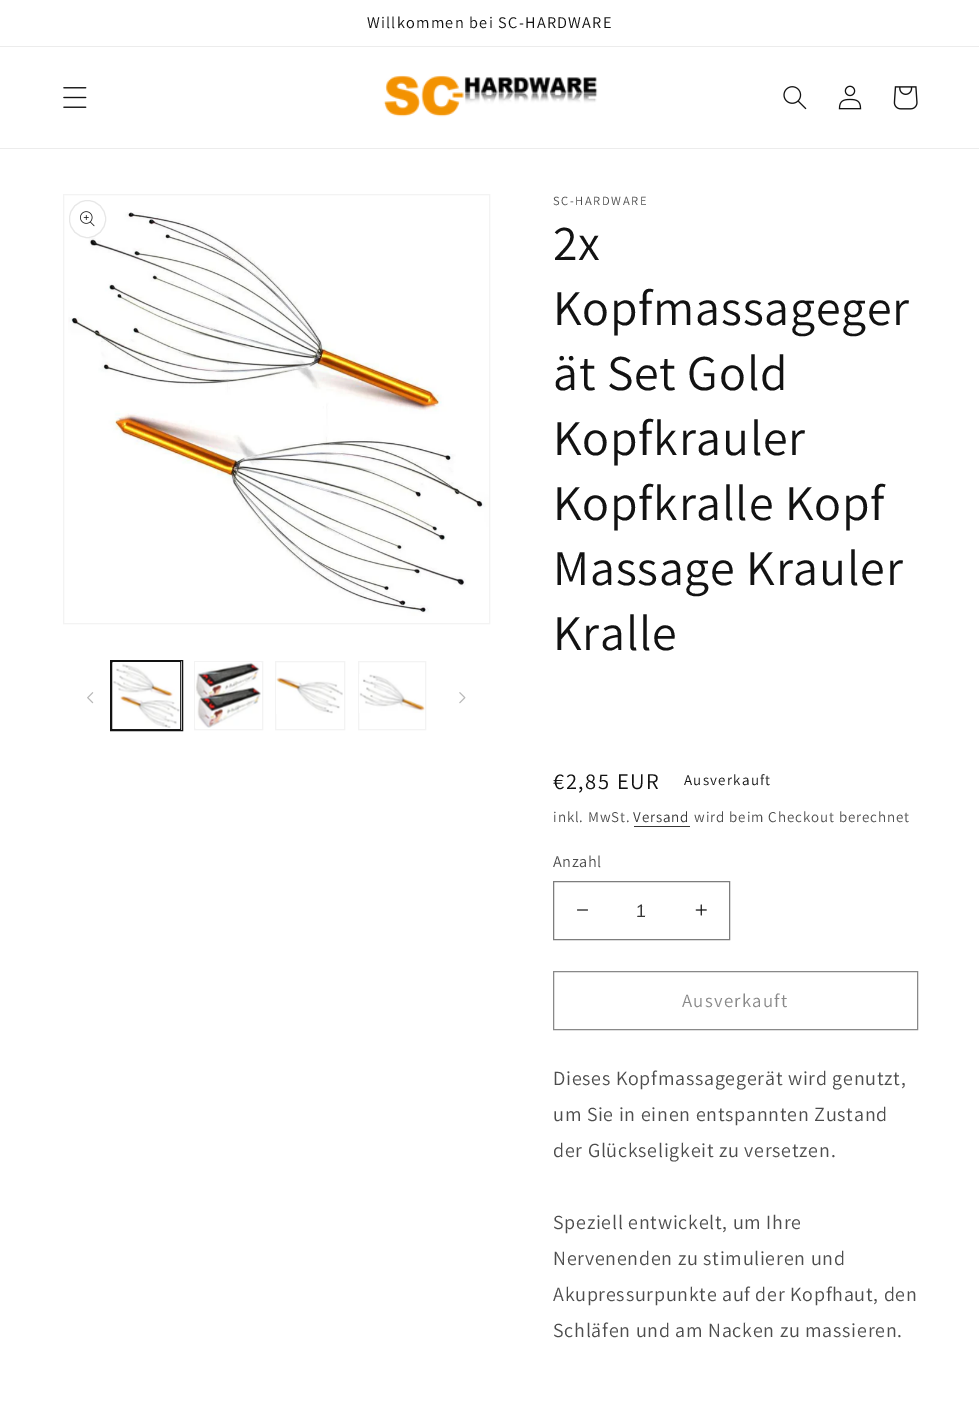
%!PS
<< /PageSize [979 1402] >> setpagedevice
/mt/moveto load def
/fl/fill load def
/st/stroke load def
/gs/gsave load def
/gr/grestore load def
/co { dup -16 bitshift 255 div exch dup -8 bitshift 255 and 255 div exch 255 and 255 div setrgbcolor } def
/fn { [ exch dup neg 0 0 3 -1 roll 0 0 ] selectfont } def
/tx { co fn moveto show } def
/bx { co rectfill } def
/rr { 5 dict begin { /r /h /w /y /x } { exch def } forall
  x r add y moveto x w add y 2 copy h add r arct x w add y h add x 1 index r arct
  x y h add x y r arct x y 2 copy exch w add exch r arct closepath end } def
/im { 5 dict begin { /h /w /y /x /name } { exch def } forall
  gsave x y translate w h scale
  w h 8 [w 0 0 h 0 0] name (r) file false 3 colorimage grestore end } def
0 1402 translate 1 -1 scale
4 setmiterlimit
0 0 979 1402 16#FFFFFF bx
0 46 979 1 16#ECECEC bx
0 148 979 1 16#ECECEC bx
(media/1.raw) 63 87 24 21 im
(media/2.raw) 383 75 215 42 im
(media/3.raw) 783 86 24 24 im
(media/4.raw) 838 85 24 25 im
(media/5.raw) 893 86 25 24 im
16#F3F3F3 co
63.5 194.5 426 429 rectstroke
(media/6.raw) 68 212 421 404 im
16#FFFFFF co
69.5 200.5 36 37 18 rr gs fl gr
16#E7E7E7 co
st
(media/7.raw) 80 211 15 16 im
(media/8.raw) 87 692 7 12 im
16#121212 co
110.5 660.5 72 70 rectstroke
111.5 661.5 69 68 rectstroke
(media/9.raw) 113 662 68 68 im
16#F3F3F3 co
194.5 661.5 68 68 rectstroke
(media/10.raw) 195 662 66 66 im
275.5 661.5 69 68 rectstroke
(media/11.raw) 276 677 67 37 im
358.5 661.5 67 68 rectstroke
(media/12.raw) 359 674 66 39 im
(media/13.raw) 459 692 7 12 im
634 826 56 1 16#363636 bx
(media/14.raw) 577 909 11 2 im
(media/15.raw) 695 904 12 12 im
16#7D7D7D co
553.5 881.5 176 58 rectstroke
16#898989 co
553.5 971.5 364 58 rectstroke
/Assistant-Regular 16.25 fn
16#121212 co
367 28 mt 1.25 0 (Willkommen bei SC-HARDWARE) ashow
/Assistant-Regular 12.5 fn
16#4D4D4D co
553 205 mt 1.6 0 (SC-HARDWARE) ashow
/Assistant-Regular 50 fn
16#121212 co
553 260 mt .75 0 (2x) ashow
553 325 mt .75 0 (Kopfmassageger) ashow
553 390 mt .75 0 (ät Set Gold) ashow
553 455 mt .75 0 (Kopfkrauler) ashow
553 520 mt .75 0 (Kopfkralle Kopf) ashow
553 585 mt .75 0 (Massage Krauler) ashow
553 650 mt .75 0 (Kralle) ashow
/Assistant-Regular 22.5 fn
553 789 mt 1.6 0 (€2,85 EUR) ashow
/Assistant-Regular 15 fn
684 785 mt 1.25 0 (Ausverkauft) ashow
16#4D4D4D co
553 822 mt .9 0 (inkl. MwSt.) ashow
16#363636 co
633 822 mt .9 0 (Versand) ashow
16#4D4D4D co
694 822 mt .9 0 (wird beim Checkout berechnet) ashow
/Assistant-Regular 16.25 fn
553 867 mt .5 0 (Anzahl) ashow
(1) 636 917 /LiberationSans-Regular 18 16#363636 tx
/Assistant-Regular 18.75 fn
16#898989 co
682 1007 mt 1.25 0 (Ausverkauft) ashow
/Assistant-Regular 20 fn
16#4D4D4D co
553 1085 mt .75 0 (Dieses Kopfmassagegerät wird genutzt,) ashow
553 1121 mt .75 0 (um Sie in einen entspannten Zustand) ashow
553 1157 mt .75 0 (der Glückseligkeit zu versetzen.) ashow
553 1229 mt .75 0 (Speziell entwickelt, um Ihre) ashow
553 1265 mt .75 0 (Nervenenden zu stimulieren und) ashow
553 1301 mt .75 0 (Akupressurpunkte auf der Kopfhaut, den) ashow
553 1337 mt .75 0 (Schläfen und am Nacken zu massieren.) ashow
showpage
